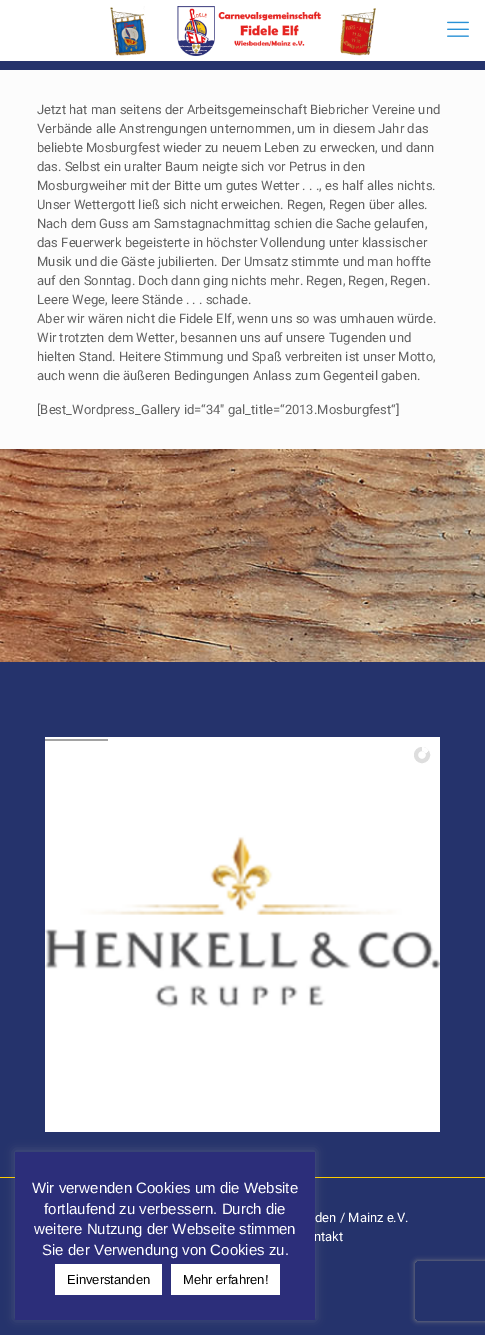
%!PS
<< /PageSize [485 1335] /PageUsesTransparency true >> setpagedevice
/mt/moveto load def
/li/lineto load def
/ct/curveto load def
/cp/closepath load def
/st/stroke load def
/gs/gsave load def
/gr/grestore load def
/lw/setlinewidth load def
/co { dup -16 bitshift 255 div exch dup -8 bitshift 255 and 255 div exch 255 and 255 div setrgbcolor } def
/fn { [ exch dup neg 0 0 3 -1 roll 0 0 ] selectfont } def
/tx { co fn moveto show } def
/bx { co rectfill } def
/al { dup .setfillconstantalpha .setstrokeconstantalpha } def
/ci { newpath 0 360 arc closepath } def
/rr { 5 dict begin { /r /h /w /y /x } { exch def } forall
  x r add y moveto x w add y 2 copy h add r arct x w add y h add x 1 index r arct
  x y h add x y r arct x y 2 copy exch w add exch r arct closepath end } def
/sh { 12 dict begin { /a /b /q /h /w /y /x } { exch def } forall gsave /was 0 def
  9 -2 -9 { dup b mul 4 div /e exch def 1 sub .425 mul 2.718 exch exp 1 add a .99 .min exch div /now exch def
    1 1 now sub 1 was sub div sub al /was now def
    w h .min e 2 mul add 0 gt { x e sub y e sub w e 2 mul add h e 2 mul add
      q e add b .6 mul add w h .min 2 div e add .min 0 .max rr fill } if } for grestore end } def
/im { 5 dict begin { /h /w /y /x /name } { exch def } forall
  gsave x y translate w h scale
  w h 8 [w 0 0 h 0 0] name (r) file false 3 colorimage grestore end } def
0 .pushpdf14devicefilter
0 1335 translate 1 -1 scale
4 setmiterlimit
0 0 485 1335 16#FFFFFF bx
(media/1.raw) 0 449 485 213 im
16#000000 co
0 0 485 449 0 7.5 .06 sh
0 70 485 379 16#FCFCFC bx
0 61 485 9 16#25336C bx
0 0 485 61 16#FFFFFF bx
(media/2.raw) 110 6 266 50 im
(media/3.raw) 447 21 22 16 im
0 662 485 673 16#25336C bx
(media/4.raw) 45 737 395 395 im
45 739 63 2 16#A2A2A2 bx
16#DEDEDE co
4 lw
422 755 6 ci st
gs
422 747 8 16 rectclip
424.5 744 mt 428.5 750.5 li 415.5 759.5 li 411 752.5 li cp clip newpath
16#FFFFFF co
427 752 mt 431.5 758.5 421 765 417 758 ct 412.5 751.5 423 745 427 752 ct cp st
gr
0 1177 485 1 16#FDCB00 bx
16#ACABAB co
15 1151 300 168 0 5 .3 sh
15 1152 300 168 16#2C2E7A bx
55 1264 107 31 16#FFFFFF bx
171 1264 109 31 16#FFFFFF bx
gs
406 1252 mt 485 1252 li 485 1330 li 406 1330 li cp 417 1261 mt 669 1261 li 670 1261 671 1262 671 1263 ct 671 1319 li 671 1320 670 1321 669 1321 ct 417 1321 li 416 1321 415 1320 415 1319 ct 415 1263 li 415 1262 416 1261 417 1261 ct cp eoclip newpath
16#808080 co
415 1261 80 60 2 2.5 1 sh
gr
(Jetzt hat man seitens der Arbeitsgemeinschaft Biebricher Vereine und) 37 114 /Roboto-Regular 13 16#626262 tx
(Verbände alle Anstrengungen unternommen, um in diesem Jahr das) 37 133 /Roboto-Regular 13 16#626262 tx
(beliebte Mosburgfest wieder zu neuem Leben zu erwecken, und dann) 37 152 /Roboto-Regular 13 16#626262 tx
(das. Selbst ein uralter Baum neigte sich vor Petrus in den) 37 171 /Roboto-Regular 13 16#626262 tx
(Mosburgweiher mit der Bitte um gutes Wetter . . ., es half alles nichts.) 37 190 /Roboto-Regular 13 16#626262 tx
(Unser Wettergott ließ sich nicht erweichen. Regen, Regen über alles.) 37 209 /Roboto-Regular 13 16#626262 tx
(Nach dem Guss am Samstagnachmittag schien die Sache gelaufen,) 37 228 /Roboto-Regular 13 16#626262 tx
(das Feuerwerk begeisterte in höchster Vollendung unter klassischer) 37 247 /Roboto-Regular 13 16#626262 tx
(Musik und die Gäste jubilierten. Der Umsatz stimmte und man hoffte) 37 266 /Roboto-Regular 13 16#626262 tx
(auf den Sonntag. Doch dann ging nichts mehr. Regen, Regen, Regen.) 37 285 /Roboto-Regular 13 16#626262 tx
(Leere Wege, leere Stände . . . schade.) 37 304 /Roboto-Regular 13 16#626262 tx
(Aber wir wären nicht die Fidele Elf, wenn uns so was umhauen würde.) 37 323 /Roboto-Regular 13 16#626262 tx
(Wir trotzten dem Wetter, besannen uns auf unsere Tugenden und) 37 342 /Roboto-Regular 13 16#626262 tx
(hielten Stand. Heitere Stimmung und Spaß verbreiten ist unser Motto,) 37 361 /Roboto-Regular 13 16#626262 tx
(auch wenn die äußeren Bedingungen Anlass zum Gegenteil gaben.) 37 380 /Roboto-Regular 13 16#626262 tx
([Best_Wordpress_Gallery id=“34″ gal_title=“2013.Mosburgfest“]) 37 414 /Roboto-Regular 13 16#626262 tx
(den / Mainz e.V.) 315 1222 /Roboto-Regular 13 16#FFFFFF tx
(ntakt) 314 1241 /Roboto-Regular 13 16#FFFFFF tx
(Wir verwenden Cookies um die Website) 32 1193 /LiberationSans-Regular 15 16#FFFFFF tx
(fortlaufend zu verbessern. Durch die) 44 1214 /LiberationSans-Regular 15 16#FFFFFF tx
(weitere Nutzung der Webseite stimmen) 34 1234 /LiberationSans-Regular 15 16#FFFFFF tx
(Sie der Verwendung von Cookies zu.) 42 1255 /LiberationSans-Regular 15 16#FFFFFF tx
(Einverstanden) 67 1284 /LiberationSans-Regular 13 16#000000 tx
(Mehr erfahren!) 183 1284 /LiberationSans-Regular 13 16#000000 tx
.poppdf14devicefilter showpage
